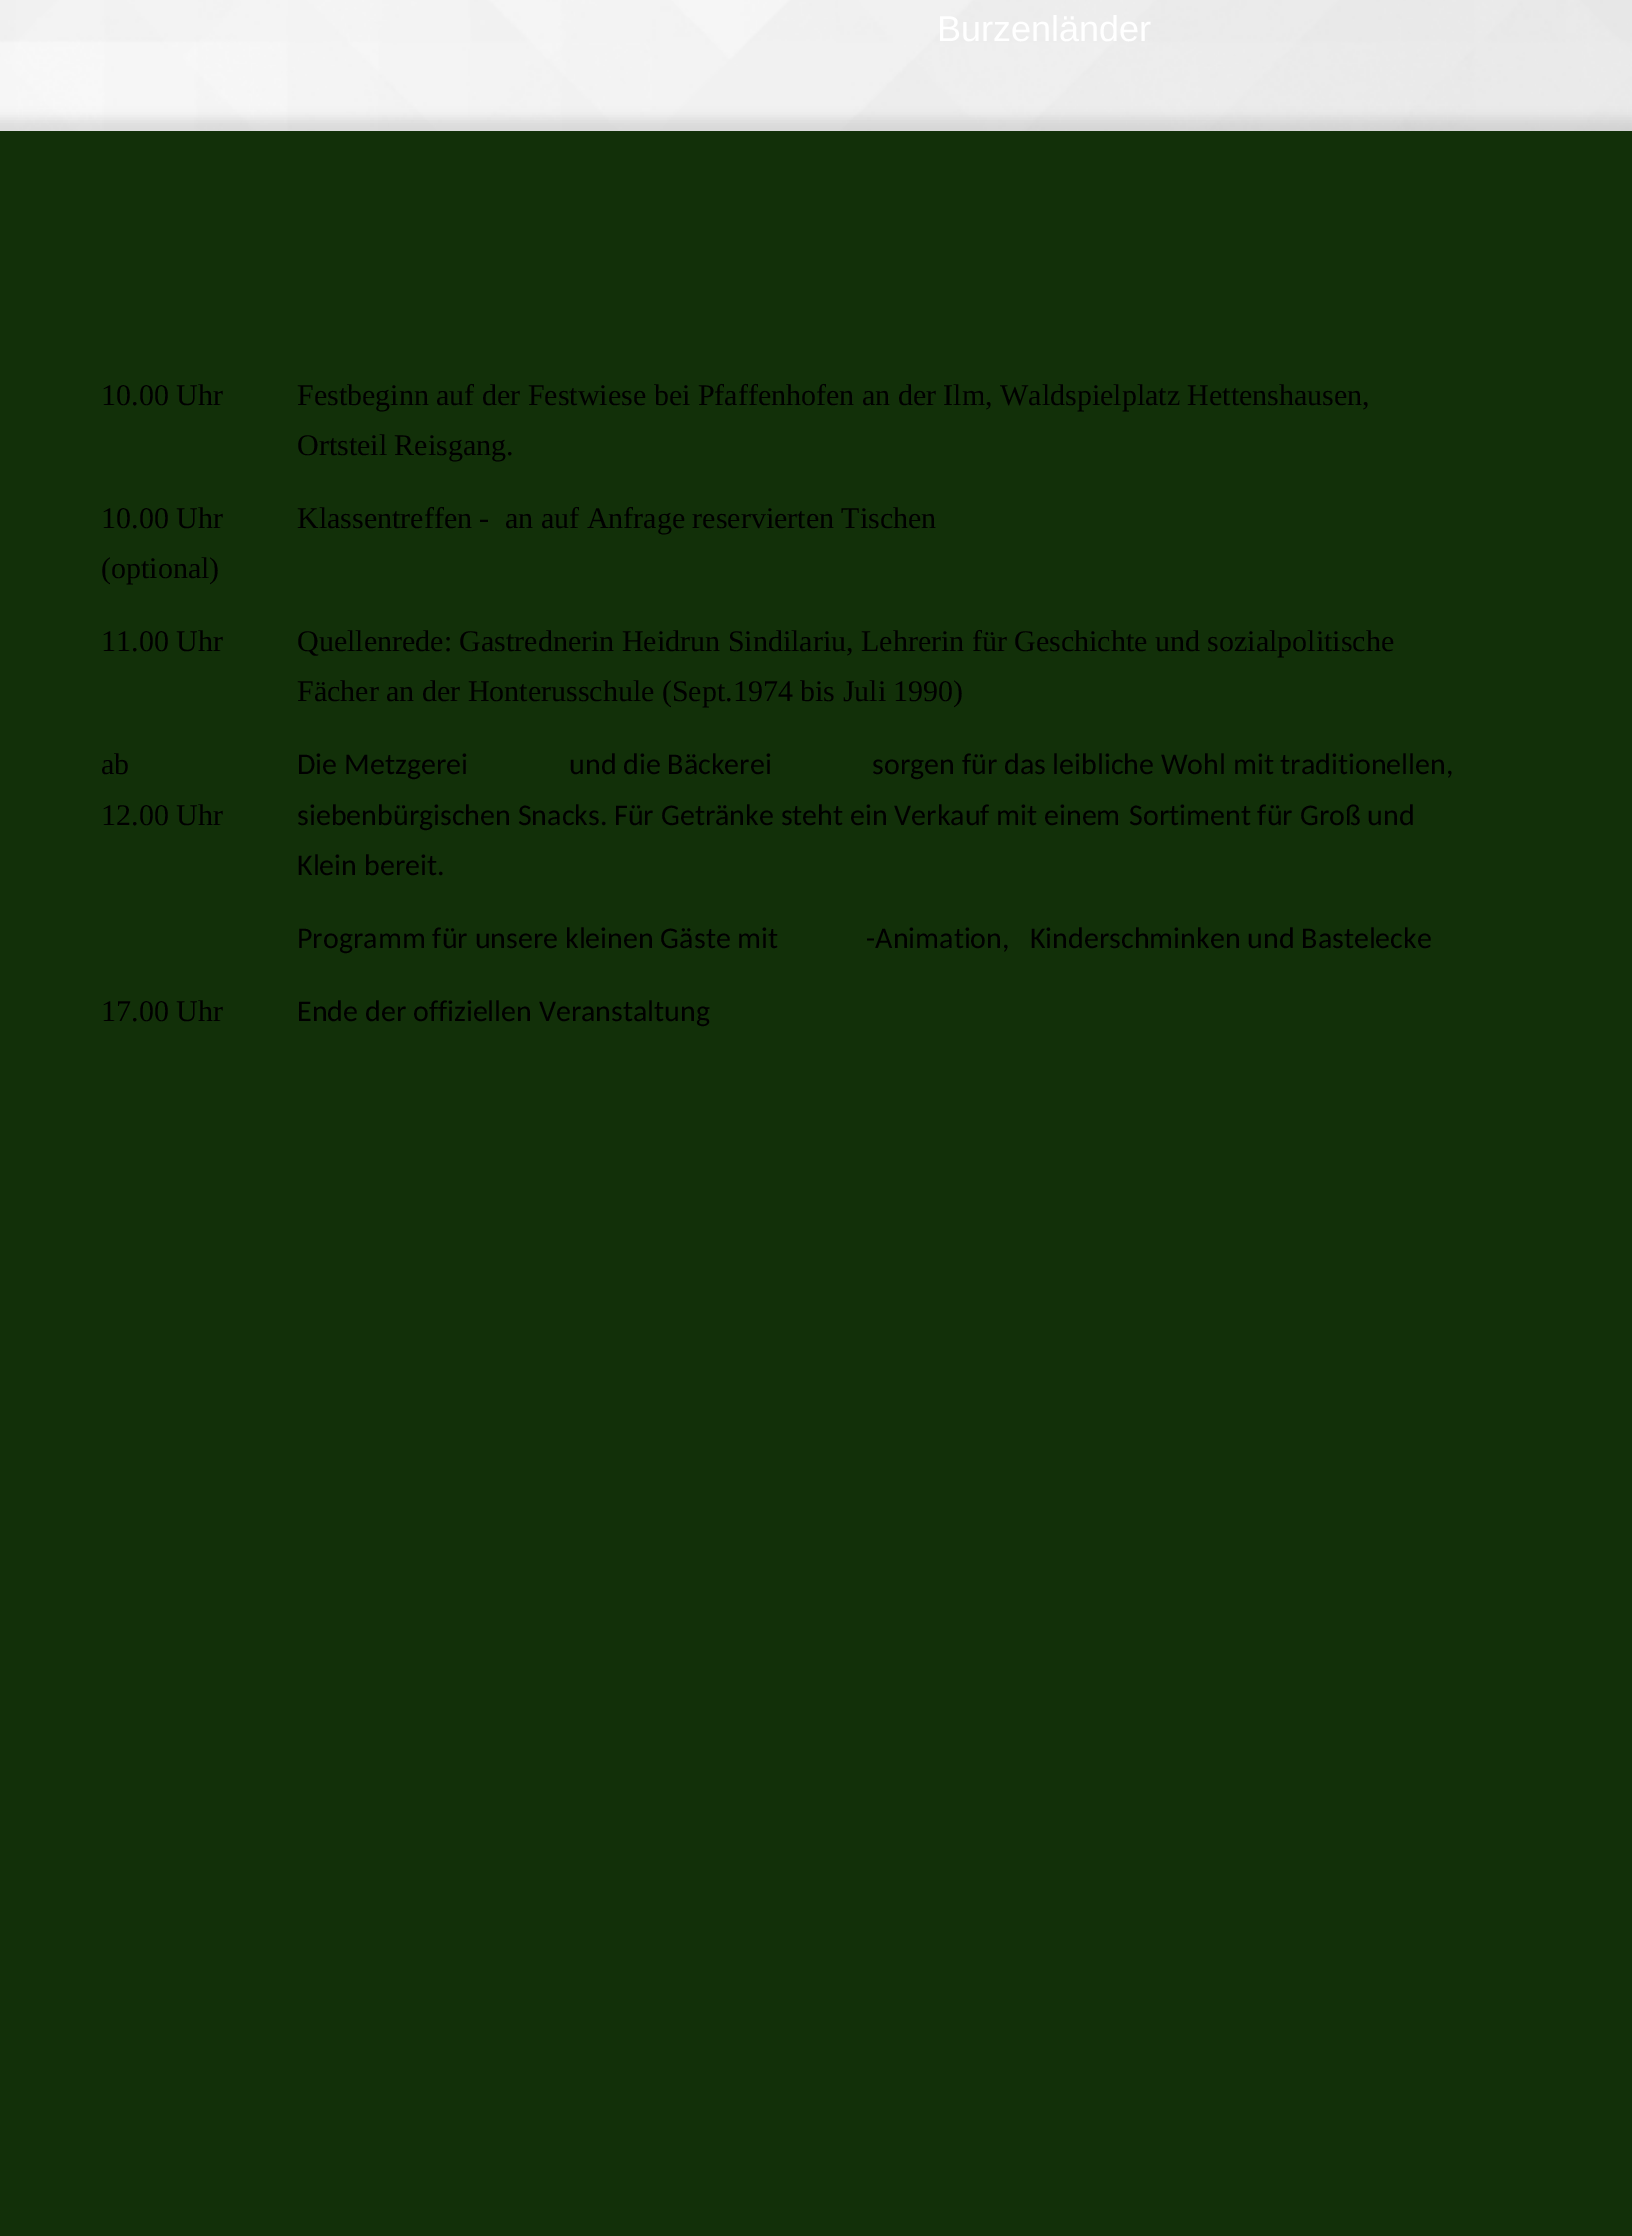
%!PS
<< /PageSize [1632 2236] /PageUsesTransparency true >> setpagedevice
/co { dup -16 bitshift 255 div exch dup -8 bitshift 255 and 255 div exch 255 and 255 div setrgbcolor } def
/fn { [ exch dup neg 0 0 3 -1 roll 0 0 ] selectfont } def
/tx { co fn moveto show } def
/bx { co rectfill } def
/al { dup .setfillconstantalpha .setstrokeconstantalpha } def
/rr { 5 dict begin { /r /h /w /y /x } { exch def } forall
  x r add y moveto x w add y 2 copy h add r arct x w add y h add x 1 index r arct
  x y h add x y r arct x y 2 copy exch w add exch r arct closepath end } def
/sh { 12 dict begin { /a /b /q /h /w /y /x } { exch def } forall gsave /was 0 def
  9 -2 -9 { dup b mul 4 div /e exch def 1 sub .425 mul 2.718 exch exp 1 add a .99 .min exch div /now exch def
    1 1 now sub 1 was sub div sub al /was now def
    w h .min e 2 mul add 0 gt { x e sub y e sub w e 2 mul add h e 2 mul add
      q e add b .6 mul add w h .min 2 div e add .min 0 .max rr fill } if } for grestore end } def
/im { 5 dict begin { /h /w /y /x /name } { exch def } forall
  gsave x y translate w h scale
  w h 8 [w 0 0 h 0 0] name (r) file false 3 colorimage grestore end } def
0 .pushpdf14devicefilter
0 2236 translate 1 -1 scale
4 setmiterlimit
0 0 1632 2236 16#FFFFFF bx
(media/1.raw) 0 0 1632 131 im
16#000000 co
-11 119 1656 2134 0 5.5 .1 sh
0 131 1632 2105 16#123009 bx
(Burzenländer) 937 41 /LiberationSans-Regular 36 16#FFFFFF tx
(10.00 Uhr) 101 405 /LiberationSerif-Regular 30 16#000000 tx
(Festbeginn auf der Festwiese bei Pfaffenhofen an der Ilm, Waldspielplatz Hettenshausen,) 297 405 /LiberationSerif-Regular 30 16#000000 tx
(Ortsteil Reisgang.) 297 455 /LiberationSerif-Regular 30 16#000000 tx
(10.00 Uhr) 101 528 /LiberationSerif-Regular 30 16#000000 tx
(\(optional\)) 101 578 /LiberationSerif-Regular 30 16#000000 tx
(Klassentreffen -) 297 528 /LiberationSerif-Regular 30 16#000000 tx
(an auf Anfrage reservierten Tischen) 505 528 /LiberationSerif-Regular 30 16#000000 tx
(11.00 Uhr) 101 651 /LiberationSerif-Regular 30 16#000000 tx
(Quellenrede: Gastrednerin Heidrun Sindilariu, Lehrerin für Geschichte und sozialpolitische) 297 651 /LiberationSerif-Regular 30 16#000000 tx
(Fächer an der Honterusschule \(Sept.1974 bis Juli 1990\)) 297 701 /LiberationSerif-Regular 30 16#000000 tx
(ab) 101 774 /LiberationSerif-Regular 30 16#000000 tx
(12.00 Uhr) 101 825 /LiberationSerif-Regular 30 16#000000 tx
(Die Metzgerei) 297 774 /Carlito-Regular 30 16#000000 tx
(und die Bäckerei) 569 774 /Carlito-Regular 30 16#000000 tx
(sorgen für das leibliche Wohl mit traditionellen,) 872 774 /Carlito-Regular 30 16#000000 tx
(siebenbürgischen Snacks. Für Getränke steht ein Verkauf mit einem) 297 825 /Carlito-Regular 30 16#000000 tx
(Sortiment für Groß und) 1129 825 /Carlito-Regular 30 16#000000 tx
(Klein bereit.) 297 875 /Carlito-Regular 30 16#000000 tx
(Programm für unsere kleinen Gäste mit) 297 948 /Carlito-Regular 30 16#000000 tx
(-Animation,   Kinderschminken und Bastelecke) 866 948 /Carlito-Regular 30 16#000000 tx
(17.00 Uhr) 101 1021 /LiberationSerif-Regular 30 16#000000 tx
(Ende der offiziellen Veranstaltung) 297 1021 /Carlito-Regular 30 16#000000 tx
.poppdf14devicefilter showpage
